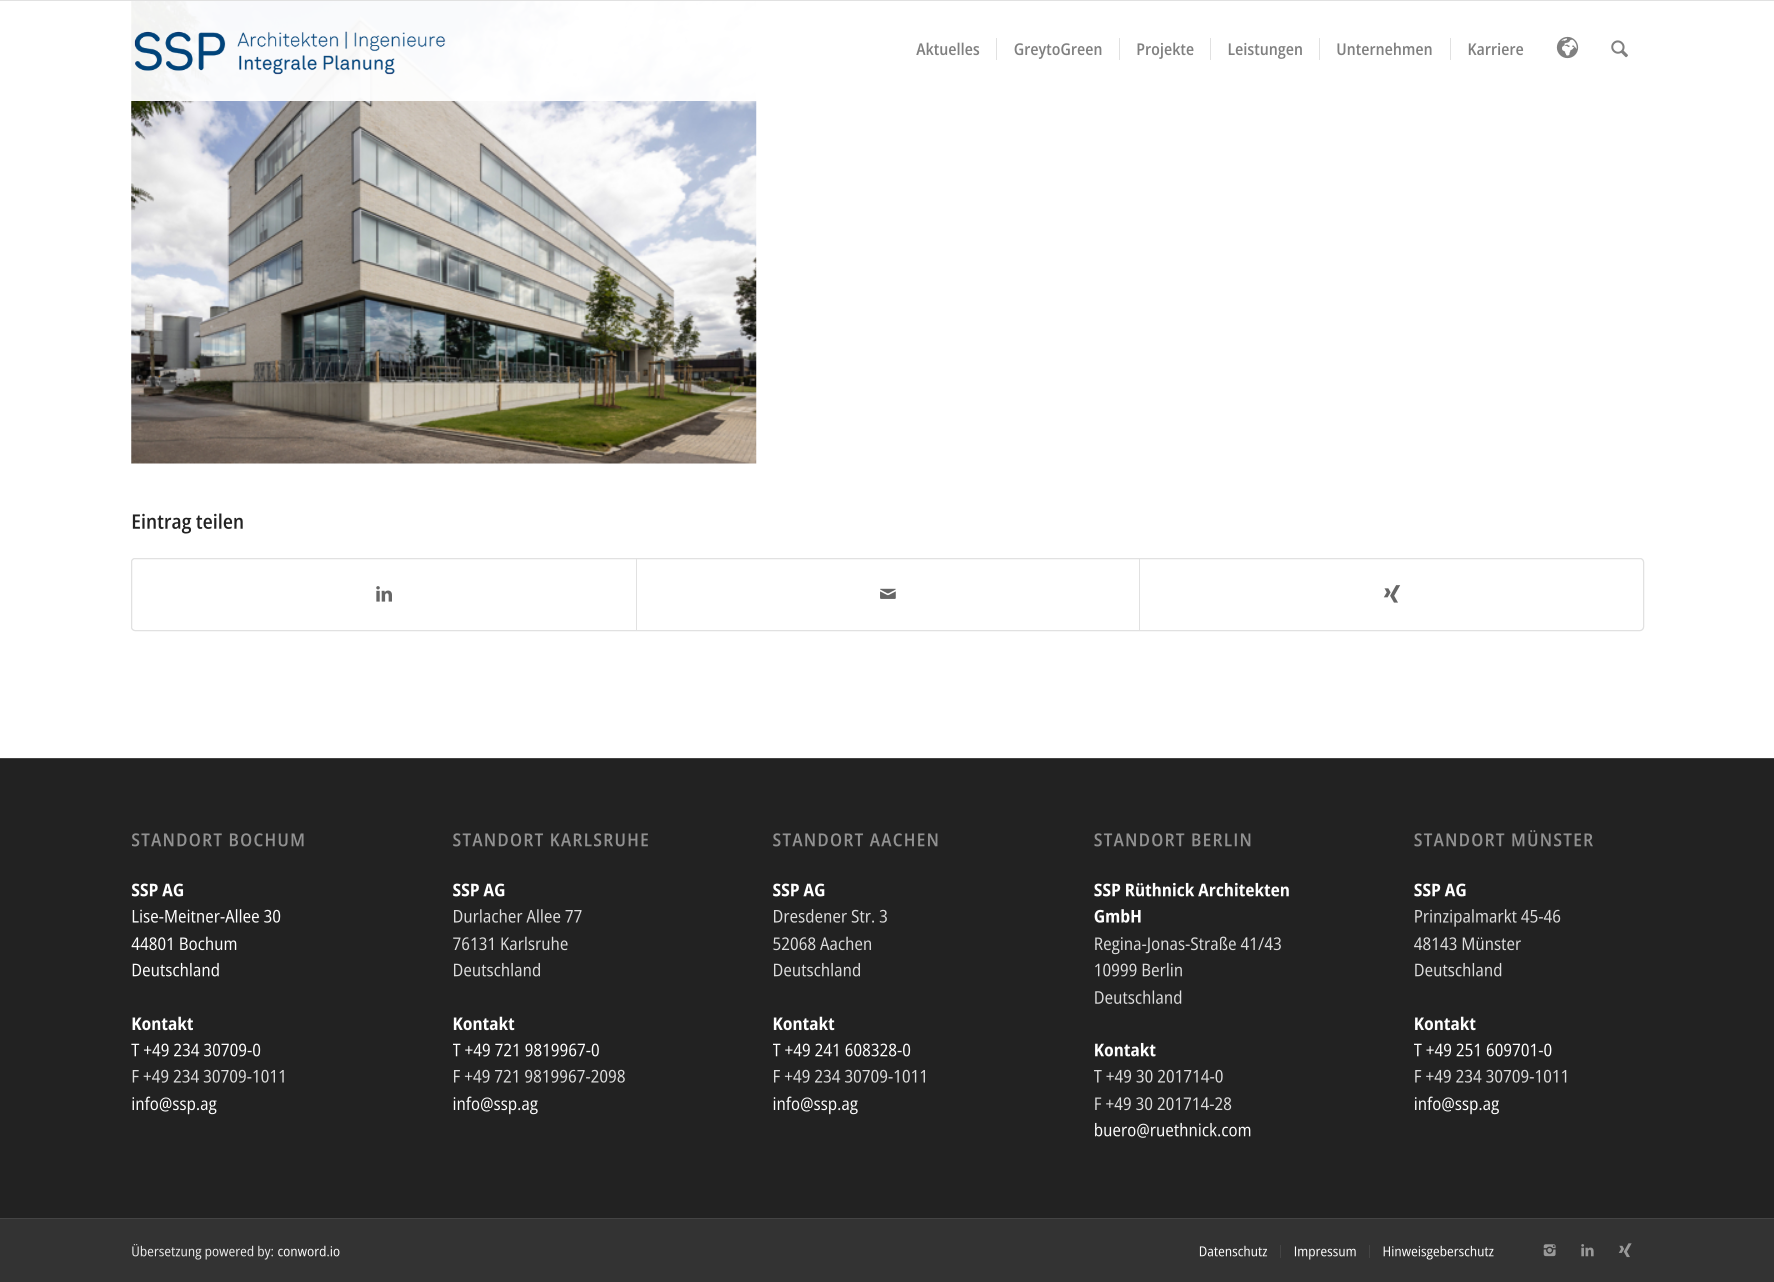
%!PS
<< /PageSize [1774 1282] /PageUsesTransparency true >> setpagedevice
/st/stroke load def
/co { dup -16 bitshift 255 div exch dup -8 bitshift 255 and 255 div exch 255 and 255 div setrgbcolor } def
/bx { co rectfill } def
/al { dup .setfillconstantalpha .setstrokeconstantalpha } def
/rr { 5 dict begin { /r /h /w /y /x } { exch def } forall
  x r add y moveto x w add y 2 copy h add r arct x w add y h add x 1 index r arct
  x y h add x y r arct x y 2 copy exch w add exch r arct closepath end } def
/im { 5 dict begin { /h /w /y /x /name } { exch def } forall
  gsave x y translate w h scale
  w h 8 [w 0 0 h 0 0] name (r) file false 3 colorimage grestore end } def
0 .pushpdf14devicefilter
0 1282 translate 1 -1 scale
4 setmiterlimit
0 0 1774 1282 16#FFFFFF bx
0 0 1774 1 16#E1E1E1 bx
(media/10.raw) 131 1 626 463 im
0.95 al
131 1 626 100 16#FFFFFF bx
1 al
(media/1.raw) 134 31 312 44 im
(media/2.raw) 916 42 64 14 im
996 38 1 22 16#E1E1E1 bx
(media/3.raw) 1014 43 88 16 im
1119 38 1 22 16#E1E1E1 bx
(media/4.raw) 1137 42 57 17 im
1210 38 1 22 16#E1E1E1 bx
(media/5.raw) 1228 42 74 17 im
1319 38 1 22 16#E1E1E1 bx
(media/6.raw) 1337 42 95 14 im
1450 38 1 22 16#E1E1E1 bx
(media/7.raw) 1468 42 56 14 im
(media/8.raw) 1556 36 23 23 im
(media/9.raw) 1611 40 17 18 im
(media/11.raw) 132 513 111 21 im
131.5 558.5 1512 72 3.5 rr st
(media/12.raw) 376 586 16 16 im
636 559 1 71 16#E1E1E1 bx
(media/13.raw) 880 588 16 11 im
1139 559 1 71 16#E1E1E1 bx
(media/14.raw) 1383 585 18 18 im
0 759 1774 459 16#222222 bx
0 758 1774 1 16#444444 bx
(media/15.raw) 132 833 172 14 im
(media/16.raw) 131 883 53 14 im
(media/17.raw) 132 909 149 14 im
(media/18.raw) 131 936 106 15 im
(media/19.raw) 132 962 87 15 im
(media/20.raw) 132 1016 61 15 im
(media/21.raw) 131 1043 130 14 im
(media/22.raw) 132 1069 152 14 im
(media/23.raw) 132 1096 85 19 im
(media/24.raw) 453 833 195 14 im
(media/25.raw) 453 883 52 14 im
(media/26.raw) 454 909 128 14 im
(media/27.raw) 453 936 115 15 im
(media/28.raw) 454 962 86 15 im
(media/29.raw) 453 1016 62 15 im
(media/30.raw) 453 1043 146 14 im
(media/31.raw) 454 1069 171 14 im
(media/32.raw) 453 1096 85 19 im
(media/33.raw) 773 833 165 14 im
(media/25.raw) 773 883 52 14 im
(media/34.raw) 774 909 113 14 im
(media/35.raw) 773 936 98 15 im
(media/28.raw) 774 962 86 15 im
(media/29.raw) 773 1016 62 15 im
(media/36.raw) 773 1043 138 14 im
(media/37.raw) 774 1069 151 14 im
(media/32.raw) 773 1096 85 19 im
(media/38.raw) 1094 833 157 14 im
(media/39.raw) 1094 882 195 15 im
(media/40.raw) 1094 909 47 14 im
(media/41.raw) 1095 936 186 19 im
(media/42.raw) 1095 962 87 15 im
(media/43.raw) 1095 990 87 14 im
(media/44.raw) 1095 1042 61 15 im
(media/45.raw) 1094 1069 129 14 im
(media/46.raw) 1095 1097 137 14 im
(media/47.raw) 1095 1122 156 16 im
(media/48.raw) 1414 830 179 17 im
(media/49.raw) 1414 883 52 14 im
(media/50.raw) 1415 909 146 18 im
(media/51.raw) 1414 937 107 14 im
(media/52.raw) 1415 962 87 15 im
(media/53.raw) 1415 1016 61 15 im
(media/54.raw) 1414 1043 138 14 im
(media/55.raw) 1415 1069 152 14 im
(media/56.raw) 1415 1096 84 19 im
0 1219 1774 63 16#333333 bx
0 1218 1774 1 16#444444 bx
(media/57.raw) 132 1244 141 16 im
(media/58.raw) 278 1245 62 12 im
(media/59.raw) 1199 1245 69 12 im
1280 1245 1 13 16#444444 bx
(media/60.raw) 1294 1246 62 14 im
1369 1245 1 13 16#444444 bx
(media/61.raw) 1383 1245 111 15 im
(media/62.raw) 1543 1244 13 13 im
(media/63.raw) 1581 1244 13 13 im
(media/64.raw) 1618 1243 14 15 im
.poppdf14devicefilter showpage
